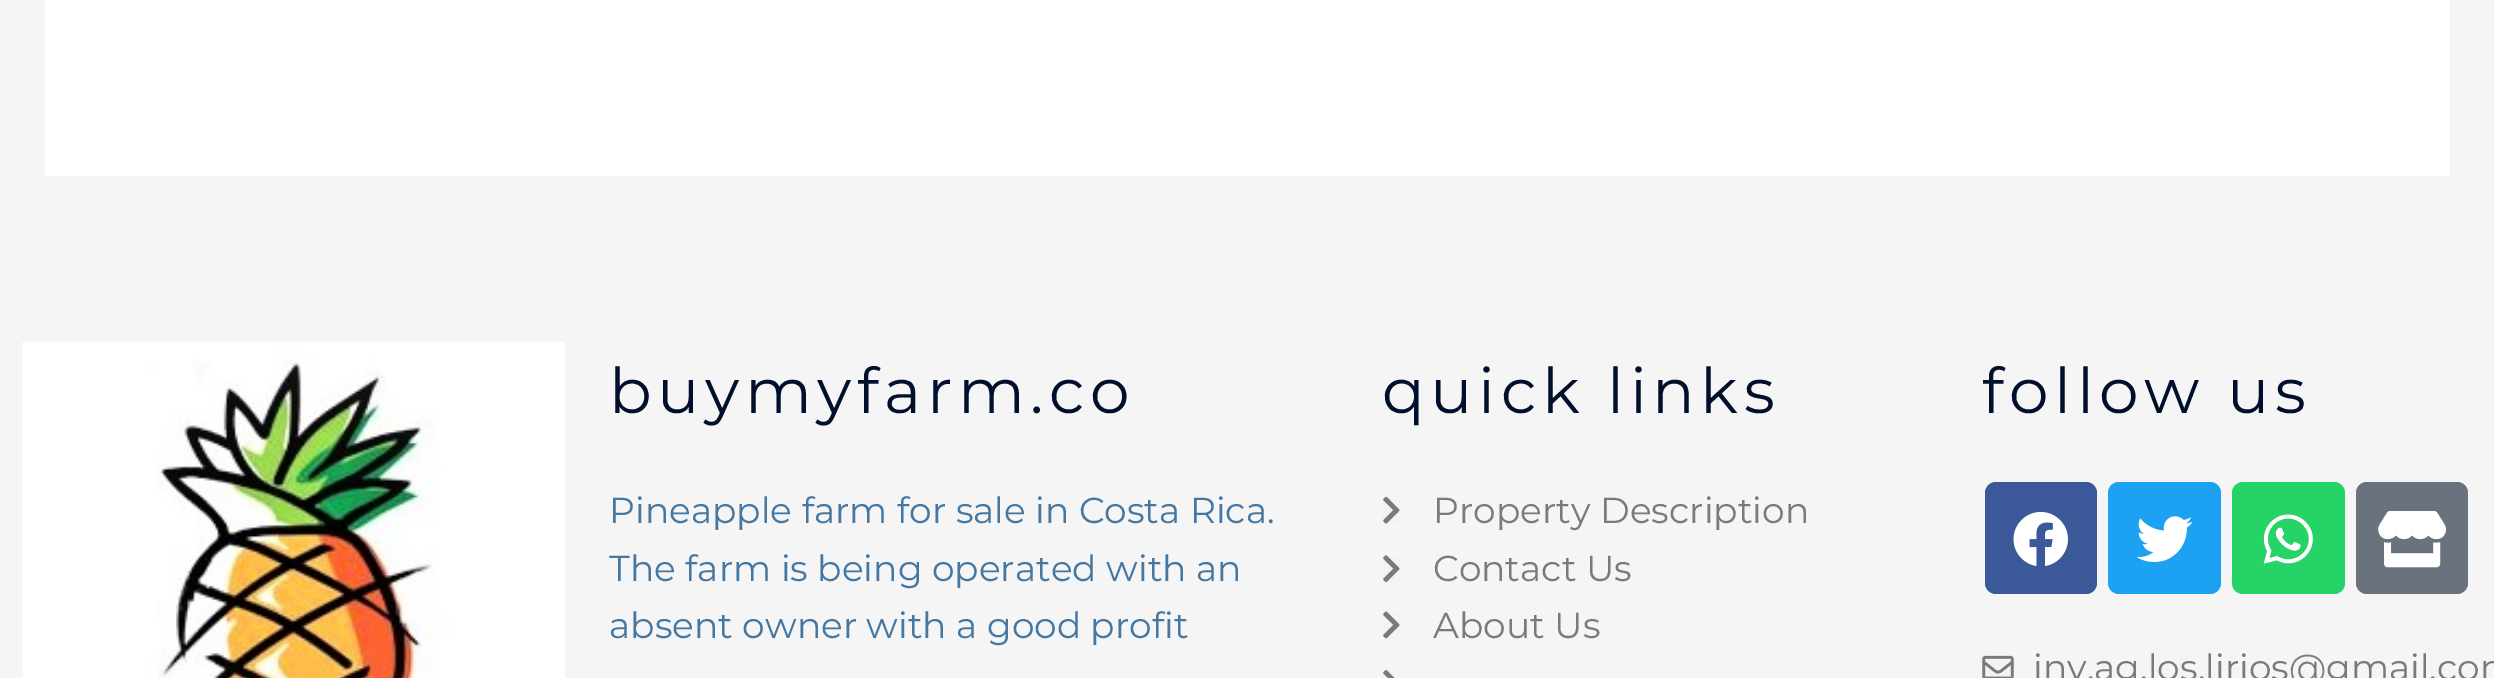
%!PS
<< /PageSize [2494 678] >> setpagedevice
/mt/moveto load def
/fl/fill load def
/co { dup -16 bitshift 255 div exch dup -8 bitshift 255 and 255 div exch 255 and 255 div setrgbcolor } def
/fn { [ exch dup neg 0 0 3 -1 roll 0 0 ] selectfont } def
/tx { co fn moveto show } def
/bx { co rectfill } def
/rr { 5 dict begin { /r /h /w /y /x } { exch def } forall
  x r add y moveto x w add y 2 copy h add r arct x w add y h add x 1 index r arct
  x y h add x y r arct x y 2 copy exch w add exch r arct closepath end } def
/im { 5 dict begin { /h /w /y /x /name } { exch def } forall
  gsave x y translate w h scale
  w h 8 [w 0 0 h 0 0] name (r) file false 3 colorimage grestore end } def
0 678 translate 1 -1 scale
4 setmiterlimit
0 0 2494 678 16#F5F5F5 bx
45 0 2405 176 16#FFFFFF bx
(media/1.raw) 22 341 543 337 im
(media/2.raw) 1383 496 17 28 im
(media/3.raw) 1383 555 17 27 im
(media/4.raw) 1383 611 17 28 im
(media/5.raw) 1383 670 12 8 im
16#3B5998 co
1985 482 112 112 11 rr fl
(media/6.raw) 2013 511 55 55 im
16#1DA1F2 co
2108 482 113 112 11 rr fl
(media/7.raw) 2136 516 57 46 im
16#25D366 co
2232 482 113 112 11 rr fl
(media/8.raw) 2263 514 50 50 im
16#69727D co
2356 482 112 112 11 rr fl
(media/9.raw) 2378 511 69 57 im
(media/10.raw) 1982 655 32 23 im
/Montserrat-Regular 63 fn
16#000F2B co
609 413 mt 5.6 0 (buymyfarm.co) ashow
(Pineapple farm for sale in Costa Rica.) 609 523 /Montserrat-Regular 36 16#4477A1 tx
(The farm is being operated with an) 609 581 /Montserrat-Regular 36 16#4477A1 tx
(absent owner with a good profit) 609 638 /Montserrat-Regular 36 16#4477A1 tx
/Montserrat-Regular 63 fn
16#000F2B co
1382 413 mt 5.6 0 (quick links) ashow
(Property Description) 1433 523 /Montserrat-Regular 36 16#7A7A7A tx
(Contact Us) 1433 581 /Montserrat-Regular 36 16#7A7A7A tx
(About Us) 1433 638 /Montserrat-Regular 36 16#7A7A7A tx
/Montserrat-Regular 63 fn
16#000F2B co
1982 413 mt 5.6 0 (follow us) ashow
(inv.ag.los.lirios@gmail.com) 2033 680 /Montserrat-Regular 36 16#7A7A7A tx
showpage
